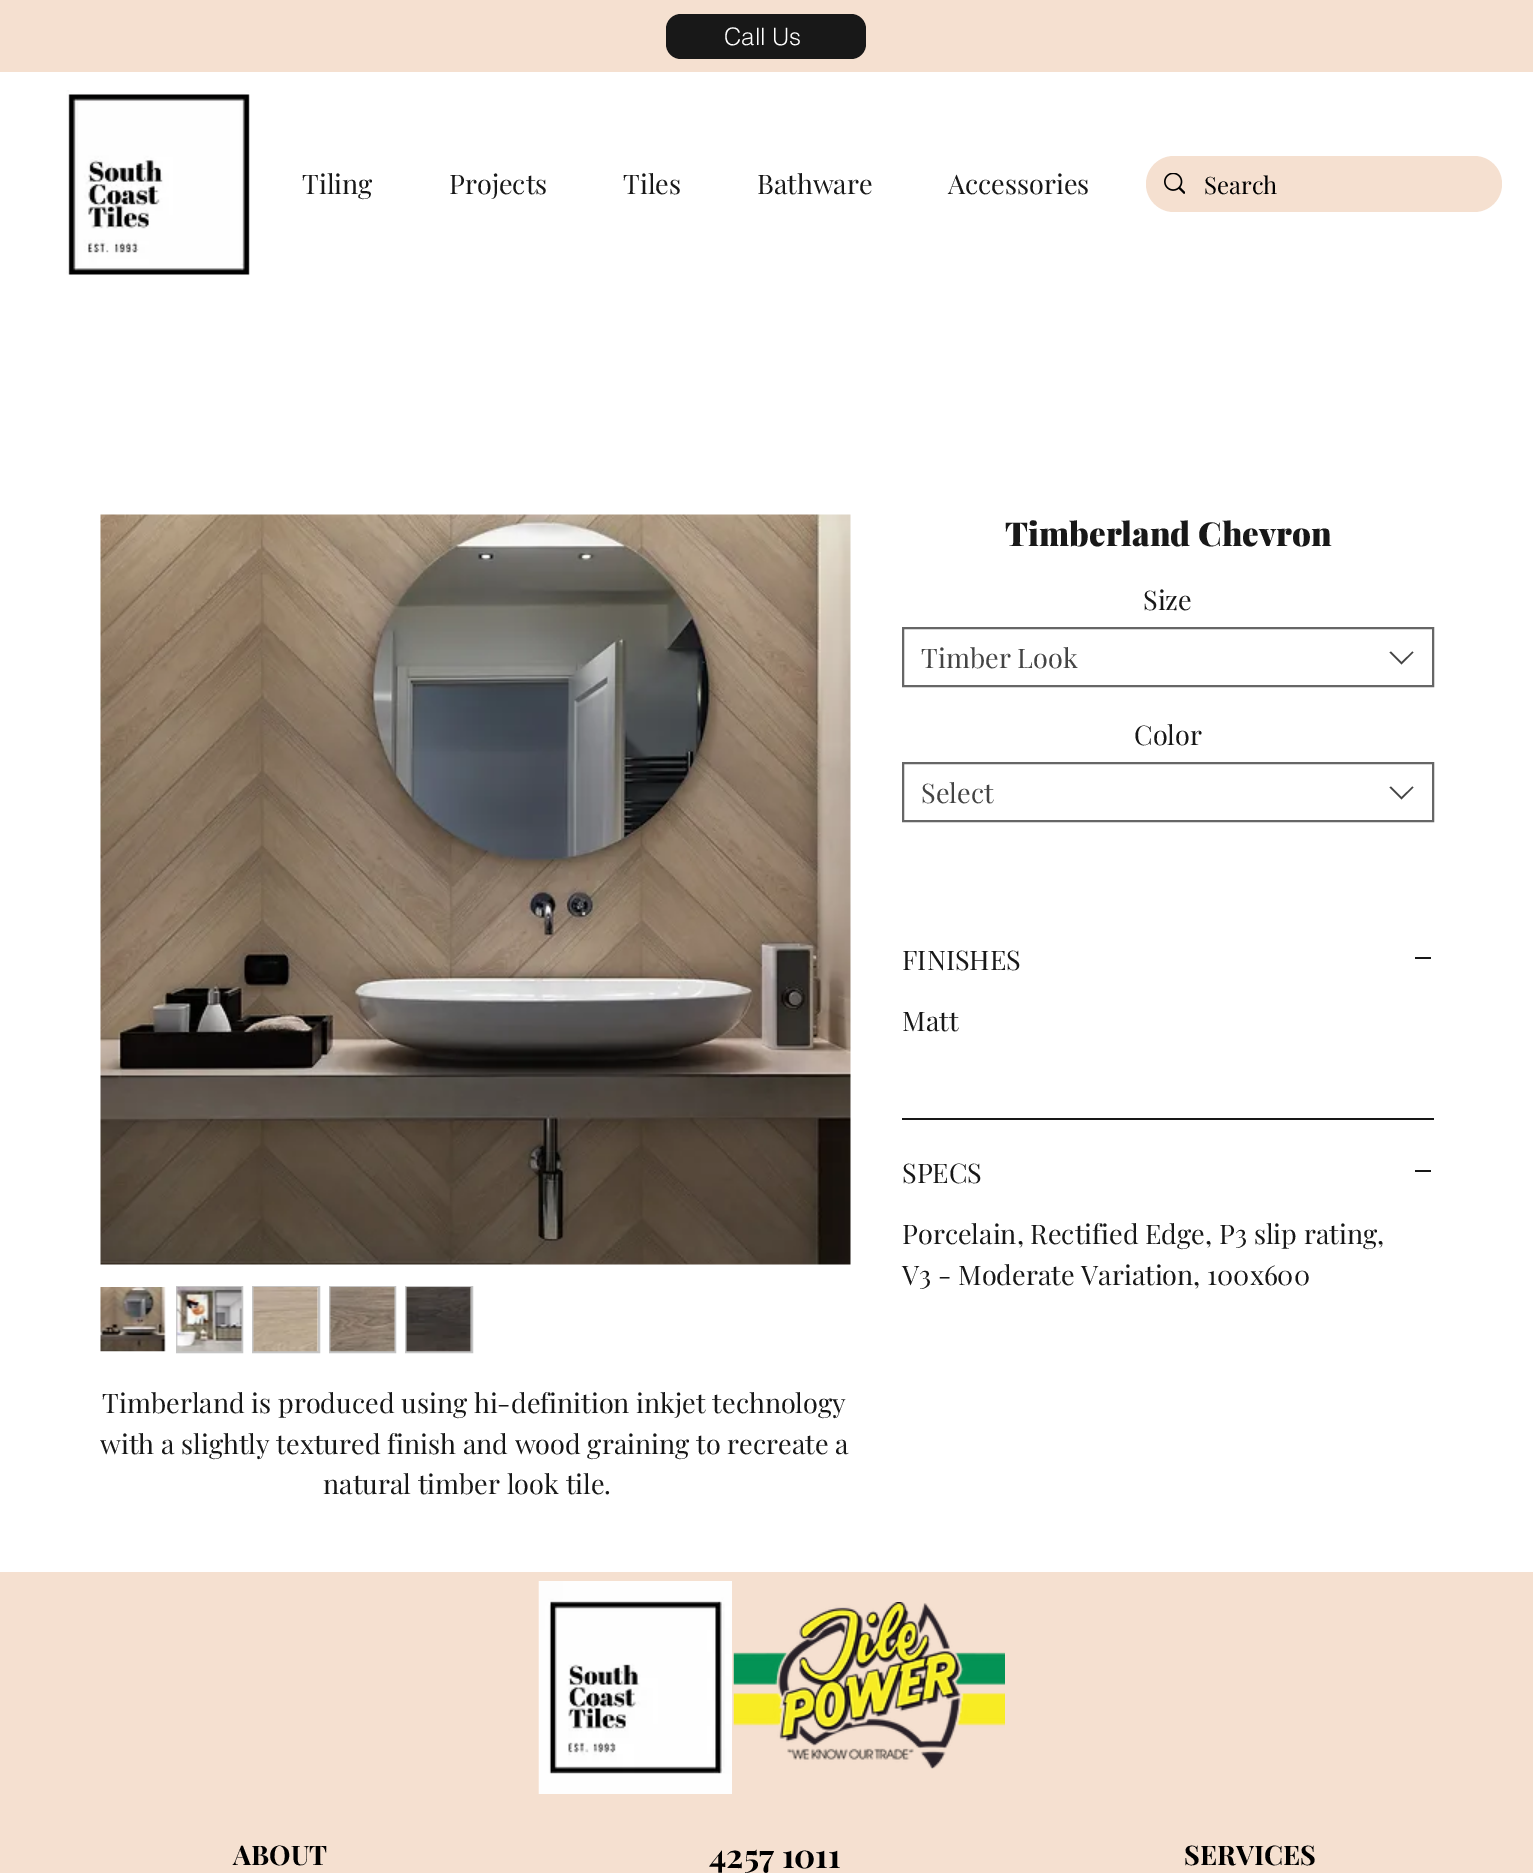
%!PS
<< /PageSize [1533 1873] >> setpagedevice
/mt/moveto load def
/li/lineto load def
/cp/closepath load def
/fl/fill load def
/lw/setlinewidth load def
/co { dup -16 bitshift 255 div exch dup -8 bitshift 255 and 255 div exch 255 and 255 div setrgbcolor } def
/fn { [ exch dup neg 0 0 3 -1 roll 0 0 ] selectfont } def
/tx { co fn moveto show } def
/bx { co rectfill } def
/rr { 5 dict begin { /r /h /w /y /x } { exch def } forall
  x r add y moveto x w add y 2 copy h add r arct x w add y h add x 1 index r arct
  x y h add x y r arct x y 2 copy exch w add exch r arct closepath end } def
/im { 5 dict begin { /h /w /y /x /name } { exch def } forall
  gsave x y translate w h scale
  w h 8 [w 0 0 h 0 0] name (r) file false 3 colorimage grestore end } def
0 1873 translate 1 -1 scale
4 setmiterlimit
0 0 1533 1873 16#FFFFFF bx
0 0 1533 72 16#F5E0D0 bx
16#181818 co
666 14 200 45 15 rr fl
(media/1.raw) 66 90 184 186 im
16#F5E0D0 co
1146 156 356 56 28 rr fl
(media/2.raw) 1164 173 21 21 im
16#666666 co
2 lw
903 628 530 58 rectstroke
16#444444 co
1412.5 651.5 mt 1413.5 652.5 li 1401.5 664.5 li 1389.5 652.5 li 1391 651.5 li 1401.5 662 li cp eofill
16#666666 co
903 763 530 58 rectstroke
16#444444 co
1412.5 786.5 mt 1413.5 787.5 li 1401.5 799.5 li 1389.5 787.5 li 1391 786.5 li 1401.5 797 li cp eofill
902 1118 532 2 16#181818 bx
1415 957 16 2 16#181818 bx
1415 1170 16 2 16#181818 bx
(media/3.raw) 100 514 751 751 im
(media/4.raw) 100 1287 66 65 im
16#C5C5C5 co
177 1287 65 65 rectstroke
(media/5.raw) 176 1287 66 65 im
253 1287 66 65 rectstroke
(media/6.raw) 253 1287 66 65 im
330 1287 65 65 rectstroke
(media/7.raw) 329 1287 66 65 im
406 1287 66 65 rectstroke
(media/8.raw) 406 1287 66 65 im
0 1572 1533 301 16#F5E0D0 bx
(media/9.raw) 538 1581 194 213 im
(media/10.raw) 733 1602 272 167 im
(Call Us) 724 45 /helvetica-Light 24 16#FFFFFF tx
(Tiling) 302 194 /PlayfairDisplay-Regular 27 16#181818 tx
(Projects) 449 194 /PlayfairDisplay-Regular 27 16#181818 tx
(Tiles) 623 194 /PlayfairDisplay-Regular 27 16#181818 tx
(Bathware) 757 194 /PlayfairDisplay-Regular 27 16#181818 tx
(Accessories) 948 194 /PlayfairDisplay-Regular 27 16#181818 tx
(Search) 1204 194 /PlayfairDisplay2-Regular 24 16#000000 tx
(Timberland Chevron) 1005 546 /PlayfairDisplay-Black 33 16#181818 tx
(Size) 1143 610 /PlayfairDisplay-Regular 27 16#181818 tx
(Timber Look) 921 668 /PlayfairDisplay-Regular 27 16#444444 tx
(Color) 1134 745 /PlayfairDisplay-Regular 27 16#181818 tx
(Select) 921 803 /PlayfairDisplay-Regular 27 16#444444 tx
(FINISHES) 902 970 /PlayfairDisplay-Regular 27 16#181818 tx
(Matt) 902 1031 /PlayfairDisplay-Regular 27 16#181818 tx
(SPECS) 902 1183 /PlayfairDisplay-Regular 27 16#181818 tx
(Porcelain, Rectified Edge, P3 slip rating,) 902 1244 /PlayfairDisplay-Regular 27 16#181818 tx
(V3 - Moderate Variation, 100x600) 902 1285 /PlayfairDisplay-Regular 27 16#181818 tx
(Timberland is produced using hi-definition inkjet technology) 102 1413 /PlayfairDisplay-Regular 27 16#181818 tx
(with a slightly textured finish and wood graining to recreate a) 100 1454 /PlayfairDisplay-Regular 27 16#181818 tx
(natural timber look tile.) 323 1494 /PlayfairDisplay-Regular 27 16#181818 tx
(ABOUT) 233 1865 /PlayfairDisplay-Bold 27 16#000000 tx
(4257 1011) 709 1868 /PlayfairDisplay-Bold 33 16#000000 tx
(SERVICES) 1184 1865 /PlayfairDisplay-Bold 27 16#000000 tx
showpage
